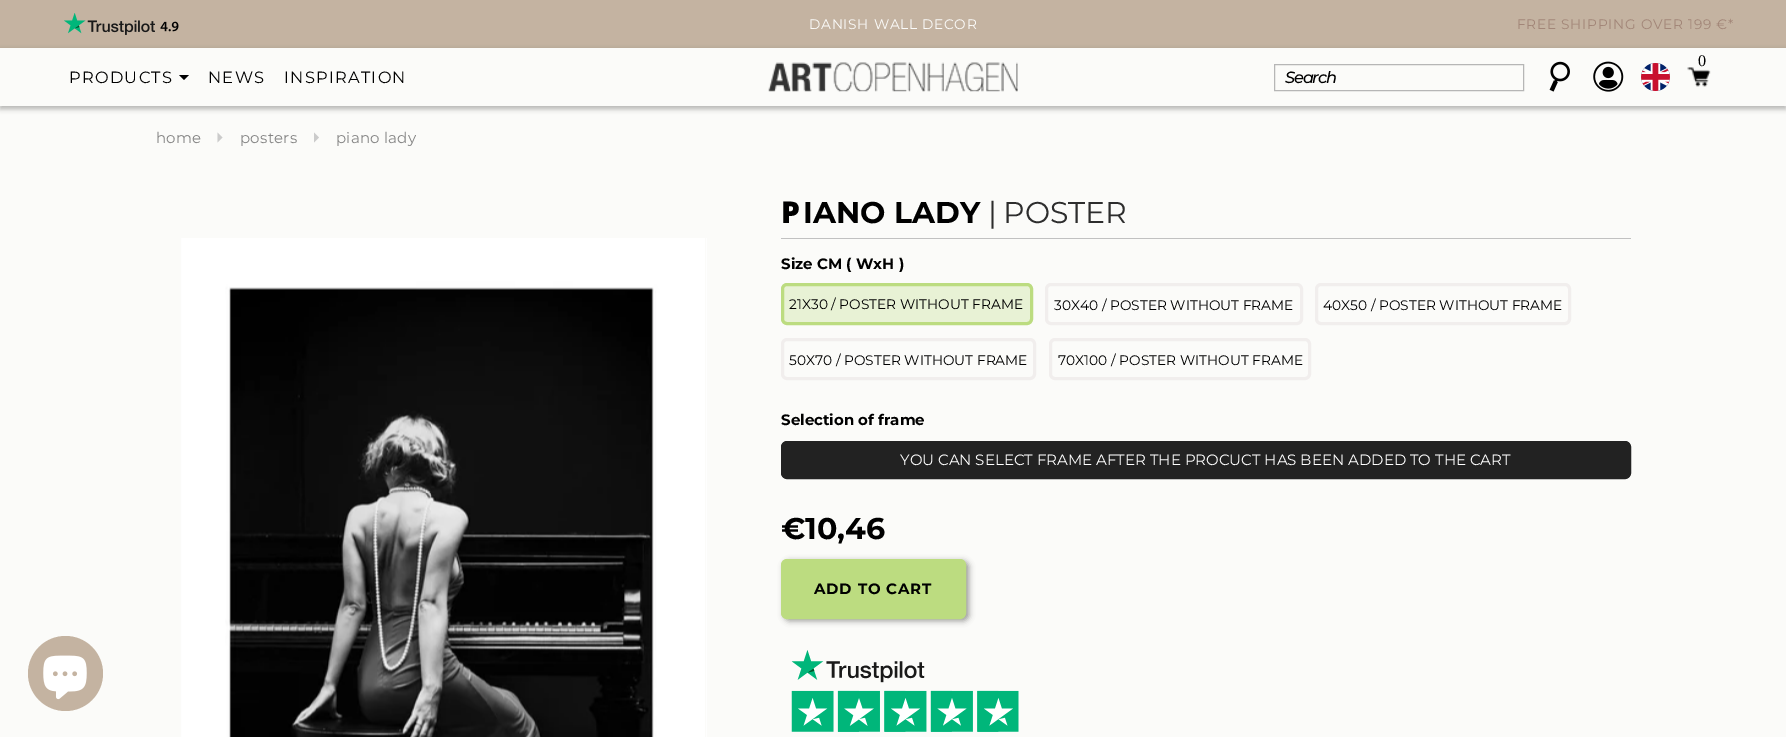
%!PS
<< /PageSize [1786 737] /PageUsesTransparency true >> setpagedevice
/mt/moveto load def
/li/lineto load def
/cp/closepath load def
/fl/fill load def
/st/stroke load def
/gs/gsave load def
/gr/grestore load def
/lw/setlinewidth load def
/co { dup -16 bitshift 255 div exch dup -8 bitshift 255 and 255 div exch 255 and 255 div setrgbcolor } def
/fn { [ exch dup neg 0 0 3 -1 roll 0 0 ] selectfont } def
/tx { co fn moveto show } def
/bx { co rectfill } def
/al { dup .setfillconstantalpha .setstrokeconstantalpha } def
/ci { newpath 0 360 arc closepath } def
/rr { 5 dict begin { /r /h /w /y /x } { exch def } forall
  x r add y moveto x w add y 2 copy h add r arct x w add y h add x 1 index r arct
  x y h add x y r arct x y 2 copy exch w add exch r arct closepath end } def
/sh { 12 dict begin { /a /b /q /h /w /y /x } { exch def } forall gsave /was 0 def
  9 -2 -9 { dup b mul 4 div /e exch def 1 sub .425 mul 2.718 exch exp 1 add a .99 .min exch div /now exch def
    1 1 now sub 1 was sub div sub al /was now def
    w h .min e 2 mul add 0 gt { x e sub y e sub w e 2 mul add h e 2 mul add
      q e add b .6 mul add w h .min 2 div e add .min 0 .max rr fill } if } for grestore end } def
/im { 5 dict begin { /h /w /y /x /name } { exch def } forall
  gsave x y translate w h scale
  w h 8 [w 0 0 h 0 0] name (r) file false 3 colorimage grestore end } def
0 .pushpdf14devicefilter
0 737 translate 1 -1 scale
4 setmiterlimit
0 0 1786 737 16#FBFBF9 bx
0 0 1786 48 16#C4B3A1 bx
(media/1.raw) 64 13 115 22 im
gs
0 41 mt 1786 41 li 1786 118 li 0 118 li cp 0 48 mt 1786 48 li 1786 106 li 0 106 li cp eoclip newpath
16#000000 co
0 50 1786 59 0 2.5 .29 sh
gr
16#000000 co
179 75 mt 189 75 li 184 80 li cp fl
(media/2.raw) 768 62 250 30 im
16#B6B6B6 co
1274.5 64.5 249 26 rectstroke
(media/3.raw) 1549 61 21 31 im
(media/4.raw) 1593 61 31 31 im
(media/5.raw) 1641 63 29 28 im
(media/6.raw) 1687 67 24 20 im
16#CBCBCB co
217.5 142.5 mt 217.5 132.5 li 222.5 137.5 li cp fl
314 142.5 mt 314 132.5 li 319 137.5 li cp fl
(media/7.raw) 181 238 524 499 im
706 238 1 499 16#FEFEFE bx
781 238 850 1 16#C1C1C1 bx
16#E8F2D5 co
782.5 284.5 249 39 4.5 rr gs fl gr
16#BCDC80 co
3 lw
st
16#F1EEED co
1046.5 284.5 255 39 4.5 rr st
1316.5 284.5 253 39 4.5 rr st
782.5 339.5 252 39 4.5 rr st
1050.5 339.5 259 39 4.5 rr st
16#222222 co
781.5 441.5 849 37 5.5 rr gs fl gr
1 lw
st
16#999999 co
784 561 185 60 6 3 1 sh
16#BCDC80 co
782.5 560.5 182 57 4.5 rr gs fl gr
3 lw
st
(media/8.raw) 791 650 228 82 im
16#C4B3A1 co
65.5 673.5 37.5 ci fl
(media/9.raw) 43 655 44 45 im
/Montserrat-Regular 13.75 fn
16#FBFBF9 co
809 29 mt .7 0 (DANISH WALL DECOR) ashow
16#A28678 co
1517 29 mt .7 0 (FREE SHIPPING OVER 199 €*) ashow
/Montserrat-Regular 16.25 fn
16#000000 co
69 83 mt 1.25 0 (PRODUCTS) ashow
208 83 mt 1.25 0 (NEWS) ashow
284 83 mt 1.25 0 (INSPIRATION) ashow
/Montserrat-MediumItalic 16.25 fn
1285 83 mt -1.25 0 (Search) ashow
/LiberationSerif-Regular 16.25 fn
1698 66 mt .25 0 (0) ashow
/Montserrat-Regular 15 fn
16#848484 co
156 143 mt .25 0 (home) ashow
240 143 mt .25 0 (posters) ashow
336 143 mt .25 0 (piano lady) ashow
(P) 781 223 /NotoSans-Black 30 16#000000 tx
(IANO LADY) 803 223 /Montserrat-Bold 30 16#000000 tx
(|) 988 223 /Montserrat-Regular 30 16#2D2D2D tx
(POSTER) 1003 223 /Montserrat-Regular 30 16#2D2D2D tx
(Size CM \( WxH \)) 781 269 /Montserrat-Bold 15 16#000000 tx
(21X30 / POSTER WITHOUT FRAME) 789 309 /Montserrat-Regular 13.75 16#000000 tx
(30X40 / POSTER WITHOUT FRAME) 1054 310 /Montserrat-Regular 13.75 16#000000 tx
(40X50 / POSTER WITHOUT FRAME) 1323 310 /Montserrat-Regular 13.75 16#000000 tx
(50X70 / POSTER WITHOUT FRAME) 789 365 /Montserrat-Regular 13.75 16#000000 tx
(70X100 / POSTER WITHOUT FRAME) 1058 365 /Montserrat-Regular 13.75 16#000000 tx
(Selection of frame) 781 425 /Montserrat-Bold 15 16#000000 tx
(YOU CAN SELECT FRAME AFTER THE PROCUCT HAS BEEN ADDED TO THE CART) 900 465 /Montserrat-Regular 15 16#FFFFFF tx
(€10,46) 781 539 /Montserrat-Bold 30 16#000000 tx
/Montserrat-Bold 15 fn
814 594 mt .75 0 (ADD TO CART) ashow
.poppdf14devicefilter showpage
